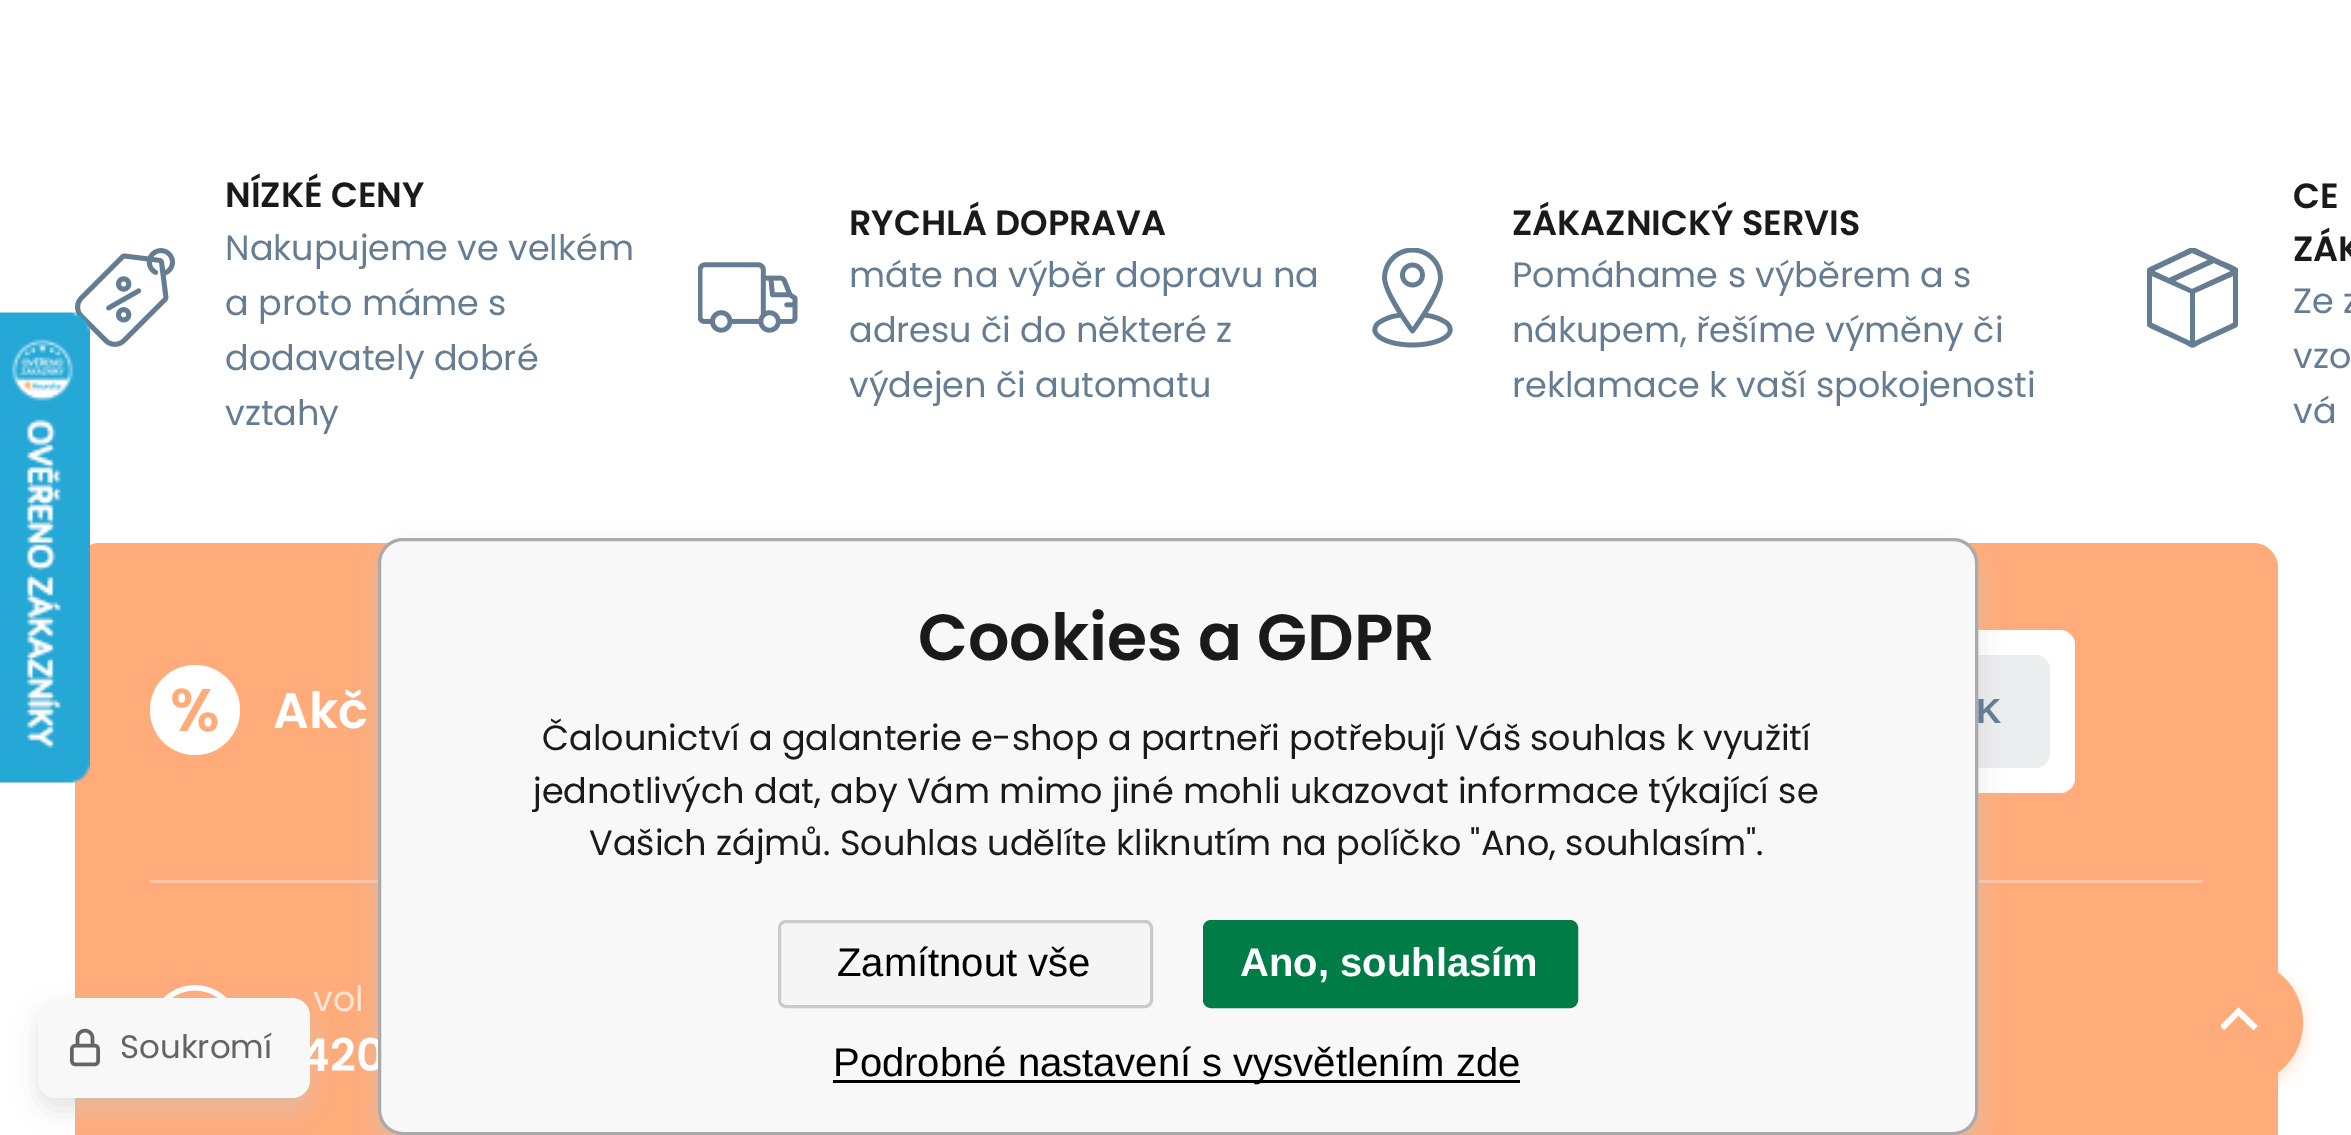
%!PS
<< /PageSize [2351 1135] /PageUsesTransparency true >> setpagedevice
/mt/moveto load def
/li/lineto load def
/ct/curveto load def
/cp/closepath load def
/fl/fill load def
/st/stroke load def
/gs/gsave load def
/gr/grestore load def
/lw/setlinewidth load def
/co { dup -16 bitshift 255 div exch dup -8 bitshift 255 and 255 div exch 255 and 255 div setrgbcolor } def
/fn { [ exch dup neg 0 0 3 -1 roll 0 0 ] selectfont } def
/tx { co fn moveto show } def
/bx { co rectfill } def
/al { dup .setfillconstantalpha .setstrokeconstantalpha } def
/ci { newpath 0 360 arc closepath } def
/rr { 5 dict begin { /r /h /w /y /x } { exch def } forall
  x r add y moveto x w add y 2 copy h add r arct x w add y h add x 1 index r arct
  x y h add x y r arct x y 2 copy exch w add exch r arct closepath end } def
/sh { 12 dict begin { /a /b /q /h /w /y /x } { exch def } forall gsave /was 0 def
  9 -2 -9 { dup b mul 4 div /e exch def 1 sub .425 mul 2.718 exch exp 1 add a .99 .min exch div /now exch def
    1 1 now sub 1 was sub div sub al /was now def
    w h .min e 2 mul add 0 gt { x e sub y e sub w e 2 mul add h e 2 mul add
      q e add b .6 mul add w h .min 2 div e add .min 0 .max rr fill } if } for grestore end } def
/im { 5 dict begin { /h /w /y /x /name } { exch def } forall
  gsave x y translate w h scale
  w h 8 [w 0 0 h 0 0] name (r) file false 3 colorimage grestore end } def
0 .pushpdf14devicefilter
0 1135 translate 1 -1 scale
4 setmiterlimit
0 0 2351 1135 16#FFFFFF bx
(media/2.raw) 75 248 100 99 im
16#FFAB7A co
75 543 2203 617 25 rr fl
(media/1.raw) 0 312 90 471 im
(media/3.raw) 698 262 100 71 im
(media/4.raw) 1372 248 81 100 im
gs
2143 248 100 100 rectclip
16#657D92 co
2147 270 mt 2147 323 li 2147 326 2147 326 2150 328 ct 2185 344 li 2194 349 2191 349 2200 344 ct 2237 327 li 2238 325 li 2238 269 li 2237 267 2225 262 2222 261 ct 2201 251 li 2191 246 2194 246 2184 251 ct 2148 268 li cp 2152 323 mt 2190 341 li 2190 293 li 2152 276 li cp 2195 293 mt 2195 341 li 2233 323 li 2233 276 li cp 2231 271 mt 2214 263 li 2175 281 li 2192 289 li cp 2154 271 mt 2169 278 li 2208 260 li 2192 253 li cp eofill
gr
16#FFFFFF co
195 710 45 ci fl
1075 630 1000 163 15 rr fl
16#ECEDEF co
1898 655 152 113 15 rr fl
150 880 2053 3 16#FFC4A2 bx
(media/5.raw) 163 985 64 13 im
16#C8C8C8 co
38 1010 272 100 18 12.5 .5 sh
378 550 1600 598 25 12.5 .5 sh
16#FFAB7A co
2178 965 125 125 62.5 7.5 .35 sh
2240.5 1022.5 62.5 ci fl
gs
2259 999 mt 2259 1036 li 2221 1036 li 2221 999 li cp clip newpath
2259 999 mt 2259 1036 li 2221 1036 li 2221 999 li cp clip newpath
16#FFFFFF co
5.9 lw
2222 1028 mt 2238.5 1011.5 li 2255.5 1028 li st
gr
(NÍZKÉ CENY) 225 207 /Poppins-SemiBold 35 16#1A1A1A tx
(Nakupujeme ve velkém) 225 260 /Poppins-Regular 35 16#657D92 tx
(a proto máme s) 225 315 /Poppins-Regular 35 16#657D92 tx
(dodavately dobré) 225 370 /Poppins-Regular 35 16#657D92 tx
(vztahy) 225 425 /Poppins-Regular 35 16#657D92 tx
(RYCHLÁ DOPRAVA) 849 235 /Poppins-SemiBold 35 16#1A1A1A tx
(máte na výběr dopravu na) 849 287 /Poppins-Regular 35 16#657D92 tx
(adresu či do některé z) 849 342 /Poppins-Regular 35 16#657D92 tx
(výdejen či automatu) 849 397 /Poppins-Regular 35 16#657D92 tx
(ZÁKAZNICKÝ SERVIS) 1512 235 /Poppins-SemiBold 35 16#1A1A1A tx
(Pomáhame s výběrem a s) 1512 287 /Poppins-Regular 35 16#657D92 tx
(nákupem, řešíme výměny či) 1512 342 /Poppins-Regular 35 16#657D92 tx
(reklamace k vaší spokojenosti) 1512 397 /Poppins-Regular 35 16#657D92 tx
(CE) 2293 208 /Poppins-SemiBold 35 16#1A1A1A tx
(ZÁK) 2293 261 /Poppins-SemiBold 35 16#1A1A1A tx
(Ze z) 2293 313 /Poppins-Regular 35 16#657D92 tx
(vzo) 2293 368 /Poppins-Regular 35 16#657D92 tx
(vá) 2293 423 /Poppins-Regular 35 16#657D92 tx
(%) 170 731 /Poppins-SemiBold 60 16#FFAB7A tx
(Akč) 273 728 /Poppins-SemiBold 50 16#FFFFFF tx
(K) 1976 723 /LiberationSans-Bold 35 16#657D92 tx
(vol) 313 1011 /Poppins-Regular 35 16#FFE6D7 tx
(420) 300 1071 /Poppins-SemiBold 45 16#FFFFFF tx
16#F8F8F8 co
38 998 272 100 18 rr fl
(media/6.raw) 70 1028 30 39 im
(Soukromí) 120 1058 /Poppins-Regular 32.5 16#646464 tx
16#F8F8F8 co
379.5 539.5 1597 594 23.5 rr gs fl gr
16#AAAAAA co
3 lw
st
(Cookies a GDPR) 918 660 /Poppins-SemiBold 65 16#1A1A1A tx
(Čalounictví a galanterie e-shop a partneři potřebují Váš souhlas k využití) 542 750 /Poppins-Regular 35 16#1A1A1A tx
(jednotlivých dat, aby Vám mimo jiné mohli ukazovat informace týkající se) 533 803 /Poppins-Regular 35 16#1A1A1A tx
(Vašich zájmů. Souhlas udělíte kliknutím na políčko "Ano, souhlasím".) 589 855 /Poppins-Regular 35 16#1A1A1A tx
16#F5F5F5 co
779.5 921.5 372 85 6.5 rr gs fl gr
16#CACACA co
st
(Zamítnout vše) 837 976 /LiberationSans-Regular 40 16#000000 tx
16#007C47 co
1204.5 921.5 372 85 6.5 rr gs fl gr
st
(Ano, souhlasím) 1240 976 /LiberationSans-Bold 40 16#FFFFFF tx
833 1080 687 3 16#000000 bx
(Podrobné nastavení s vysvětlením zde) 833 1076 /LiberationSans-Regular 40 16#000000 tx
.poppdf14devicefilter showpage
